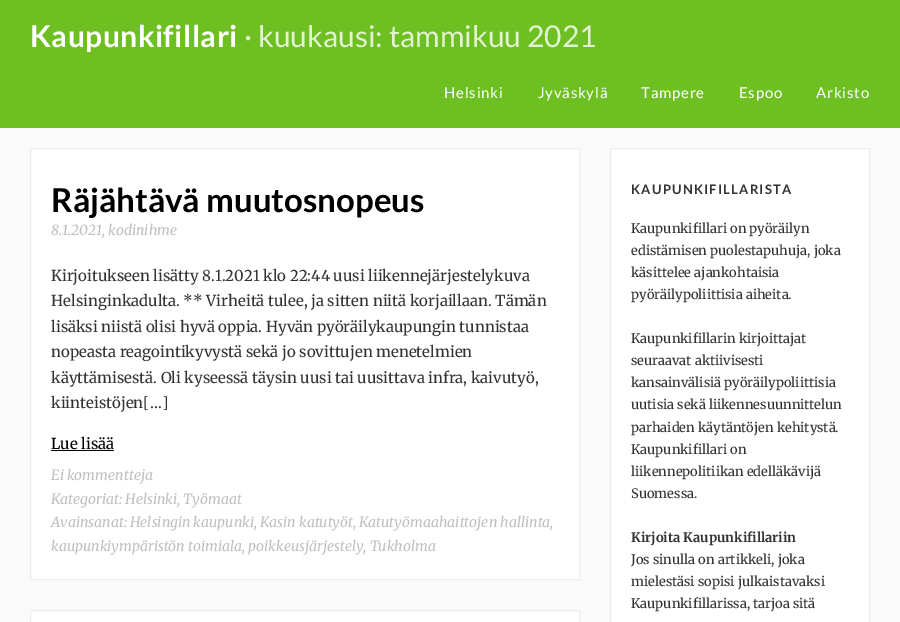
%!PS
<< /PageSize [900 622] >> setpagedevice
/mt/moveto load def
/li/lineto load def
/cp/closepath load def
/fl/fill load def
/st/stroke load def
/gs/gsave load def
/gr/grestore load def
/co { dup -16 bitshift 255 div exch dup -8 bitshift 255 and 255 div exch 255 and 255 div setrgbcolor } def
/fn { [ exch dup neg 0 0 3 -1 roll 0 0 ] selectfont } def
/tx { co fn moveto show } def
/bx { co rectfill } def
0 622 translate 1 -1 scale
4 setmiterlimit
0 0 900 622 16#FAFAFA bx
0 0 900 128 16#6EBF21 bx
16#FFFFFF co
30.5 148.5 mt 579.5 148.5 li 579.5 579.5 li 30.5 579.5 li cp gs fl gr
16#EDEDED co
st
51 450 63 1 16#000000 bx
16#FFFFFF co
30.5 610.5 mt 579.5 610.5 li 579.5 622.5 li 30.5 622.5 li cp gs fl gr
16#EDEDED co
st
16#FFFFFF co
610.5 148.5 mt 869.5 148.5 li 869.5 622.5 li 610.5 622.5 li cp gs fl gr
16#EDEDED co
st
/Lato-Bold 30 fn
16#FFFFFF co
30 47 mt .5 0 (Kaupunkifillari) ashow
(· kuukausi: tammikuu 2021) 244 47 /Lato-Regular 30 16#E2F2D3 tx
/Lato-Regular 15 fn
16#FFFFFF co
444 98 mt .75 0 (Helsinki) ashow
538 98 mt .75 0 (Jyväskylä) ashow
641 98 mt .75 0 (Tampere) ashow
739 98 mt .75 0 (Espoo) ashow
816 98 mt .75 0 (Arkisto) ashow
(Räjähtävä muutosnopeus) 51 212 /Lato-Bold 33 16#000000 tx
(8.1.2021, kodinihme) 51 235 /Merriweather-Italic 14 16#BFBFBF tx
(Kirjoitukseen lisätty 8.1.2021 klo 22:44 uusi liikennejärjestelykuva) 51 281 /Merriweather-Regular 15 16#333333 tx
(Helsinginkadulta. ** Virheitä tulee, ja sitten niitä korjaillaan. Tämän) 51 306 /Merriweather-Regular 15 16#333333 tx
(lisäksi niistä olisi hyvä oppia. Hyvän pyöräilykaupungin tunnistaa) 51 332 /Merriweather-Regular 15 16#333333 tx
(nopeasta reagointikyvystä sekä jo sovittujen menetelmien) 51 357 /Merriweather-Regular 15 16#333333 tx
(käyttämisestä. Oli kyseessä täysin uusi tai uusittava infra, kaivutyö,) 51 383 /Merriweather-Regular 15 16#333333 tx
(kiinteistöjen[…]) 51 408 /Merriweather-Regular 15 16#333333 tx
(Lue lisää) 51 449 /Merriweather-Regular 15 16#000000 tx
(Ei kommentteja) 51 480 /Merriweather-Italic 14 16#BFBFBF tx
(Kategoriat: Helsinki, Työmaat) 51 504 /Merriweather-Italic 14 16#BFBFBF tx
(Avainsanat: Helsingin kaupunki, Kasin katutyöt, Katutyömaahaittojen hallinta,) 51 527 /Merriweather-Italic 14 16#BFBFBF tx
(kaupunkiympäristön toimiala, poikkeusjärjestely, Tukholma) 51 551 /Merriweather-Italic 14 16#BFBFBF tx
/Lato-Bold 13 fn
16#333333 co
631 194 mt 1.25 0 (KAUPUNKIFILLARISTA) ashow
(Kaupunkifillari on pyöräilyn) 631 233 /Merriweather-Regular 13 16#333333 tx
(edistämisen puolestapuhuja, joka) 631 255 /Merriweather-Regular 13 16#333333 tx
(käsittelee ajankohtaisia) 631 277 /Merriweather-Regular 13 16#333333 tx
(pyöräilypoliittisia aiheita.) 631 299 /Merriweather-Regular 13 16#333333 tx
(Kaupunkifillarin kirjoittajat) 631 343 /Merriweather-Regular 13 16#333333 tx
(seuraavat aktiivisesti) 631 365 /Merriweather-Regular 13 16#333333 tx
(kansainvälisiä pyöräilypoliittisia) 631 387 /Merriweather-Regular 13 16#333333 tx
(uutisia sekä liikennesuunnittelun) 631 409 /Merriweather-Regular 13 16#333333 tx
(parhaiden käytäntöjen kehitystä.) 631 432 /Merriweather-Regular 13 16#333333 tx
(Kaupunkifillari on) 631 454 /Merriweather-Regular 13 16#333333 tx
(liikennepolitiikan edelläkävijä) 631 476 /Merriweather-Regular 13 16#333333 tx
(Suomessa.) 631 498 /Merriweather-Regular 13 16#333333 tx
(Kirjoita Kaupunkifillariin) 631 542 /Merriweather-Bold 13 16#333333 tx
(Jos sinulla on artikkeli, joka) 631 564 /Merriweather-Regular 13 16#333333 tx
(mielestäsi sopisi julkaistavaksi) 631 586 /Merriweather-Regular 13 16#333333 tx
(Kaupunkifillarissa, tarjoa sitä) 631 608 /Merriweather-Regular 13 16#333333 tx
showpage
